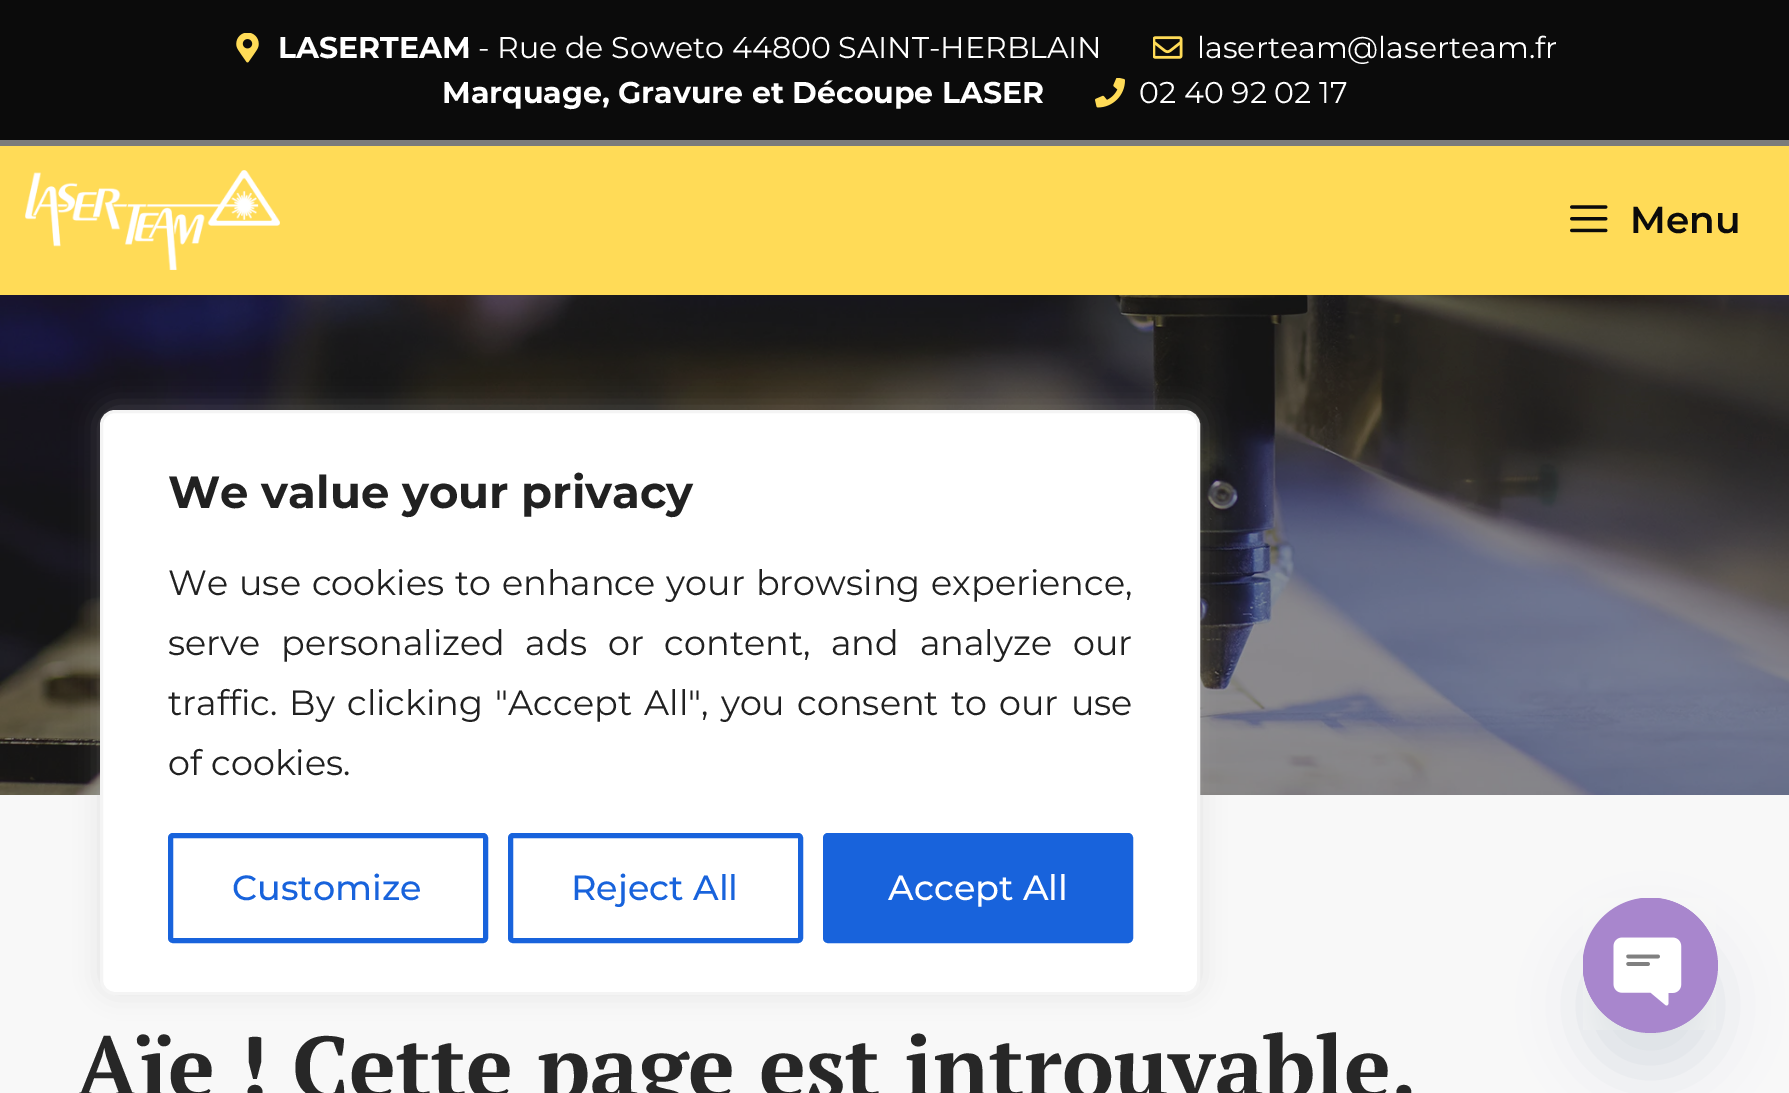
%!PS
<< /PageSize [1789 1093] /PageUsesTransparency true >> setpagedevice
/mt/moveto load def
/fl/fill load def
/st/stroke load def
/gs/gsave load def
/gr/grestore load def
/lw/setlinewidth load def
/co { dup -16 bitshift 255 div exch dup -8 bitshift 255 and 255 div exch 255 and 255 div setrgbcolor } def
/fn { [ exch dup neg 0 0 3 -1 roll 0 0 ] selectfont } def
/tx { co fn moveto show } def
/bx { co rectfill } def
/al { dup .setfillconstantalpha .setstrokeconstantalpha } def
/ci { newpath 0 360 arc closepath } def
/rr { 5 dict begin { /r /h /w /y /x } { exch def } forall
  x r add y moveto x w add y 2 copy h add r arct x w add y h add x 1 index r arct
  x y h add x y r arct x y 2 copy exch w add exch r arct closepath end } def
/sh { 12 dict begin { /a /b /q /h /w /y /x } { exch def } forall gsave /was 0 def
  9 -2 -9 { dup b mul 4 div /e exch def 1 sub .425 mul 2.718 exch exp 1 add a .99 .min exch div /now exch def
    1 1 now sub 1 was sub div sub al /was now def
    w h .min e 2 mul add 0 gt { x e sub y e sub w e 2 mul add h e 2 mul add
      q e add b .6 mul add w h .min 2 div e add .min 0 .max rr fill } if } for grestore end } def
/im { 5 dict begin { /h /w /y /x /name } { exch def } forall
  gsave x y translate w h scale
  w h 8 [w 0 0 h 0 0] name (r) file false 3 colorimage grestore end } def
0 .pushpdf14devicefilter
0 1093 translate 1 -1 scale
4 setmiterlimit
0 0 1789 1093 16#F8F8F8 bx
0 0 1789 140 16#0B0B0B bx
0 140 1789 6 16#7B7B7B bx
(media/1.raw) 236 33 23 30 im
(media/2.raw) 1153 36 30 23 im
(media/3.raw) 1095 78 30 30 im
0 146 1789 149 16#FFDB57 bx
(media/4.raw) 25 170 255 100 im
(media/5.raw) 1570 205 38 28 im
0 295 1789 500 16#272727 bx
(media/6.raw) 0 295 1789 500 im
16#ACABAB co
100 408 1100 585 15 12.5 .3 sh
16#FFFFFF co
101.5 411.5 1097 582 13.5 rr gs fl gr
16#F4F4F4 co
3 lw
st
16#1863DC co
5 lw
170.5 835.5 315 105 2.5 rr st
510.5 835.5 290 105 2.5 rr st
825.5 835.5 305 105 2.5 rr gs fl gr
st
16#49687E co
1583 938 135 135 67.5 30 .16 sh
16#A886CD co
1650.5 965.5 67.5 ci fl
(media/7.raw) 1583 898 133 132 im
(LASERTEAM) 278 58 /Montserrat-Bold 30 16#FFFFFF tx
(- Rue de Soweto 44800 SAINT-HERBLAIN) 478 58 /Montserrat-Regular 30 16#FFFFFF tx
(laserteam@laserteam.fr) 1197 58 /Montserrat-Regular 30 16#FFFFFF tx
(Marquage, Gravure et Découpe LASER) 442 103 /Montserrat-Bold 30 16#FFFFFF tx
(02 40 92 02 17) 1139 103 /Montserrat-Regular 30 16#FFFFFF tx
(Menu) 1630 233 /Montserrat-SemiBold 37.5 16#0B0B0B tx
(We value your privacy) 168 508 /Montserrat-Bold 45 16#212121 tx
/Montserrat-Regular 35 fn
168 595 mt 1.75 0 32 (We use cookies to enhance your browsing experience,) widthshow
168 655 mt 11.5 0 32 (serve personalized ads or content, and analyze our) widthshow
168 715 mt 3 0 32 (traffic. By clicking "Accept All", you consent to our use) widthshow
(of cookies.) 168 775 /Montserrat-Regular 35 16#212121 tx
(Customize) 232 900 /Montserrat-Medium 35 16#1863DC tx
(Reject All) 571 900 /Montserrat-Medium 35 16#1863DC tx
(Accept All) 888 900 /Montserrat-Medium 35 16#FFFFFF tx
(Aïe ! Cette page est introuvable.) 75 1098 /PTSerif-Bold 87.5 16#272727 tx
.poppdf14devicefilter showpage
